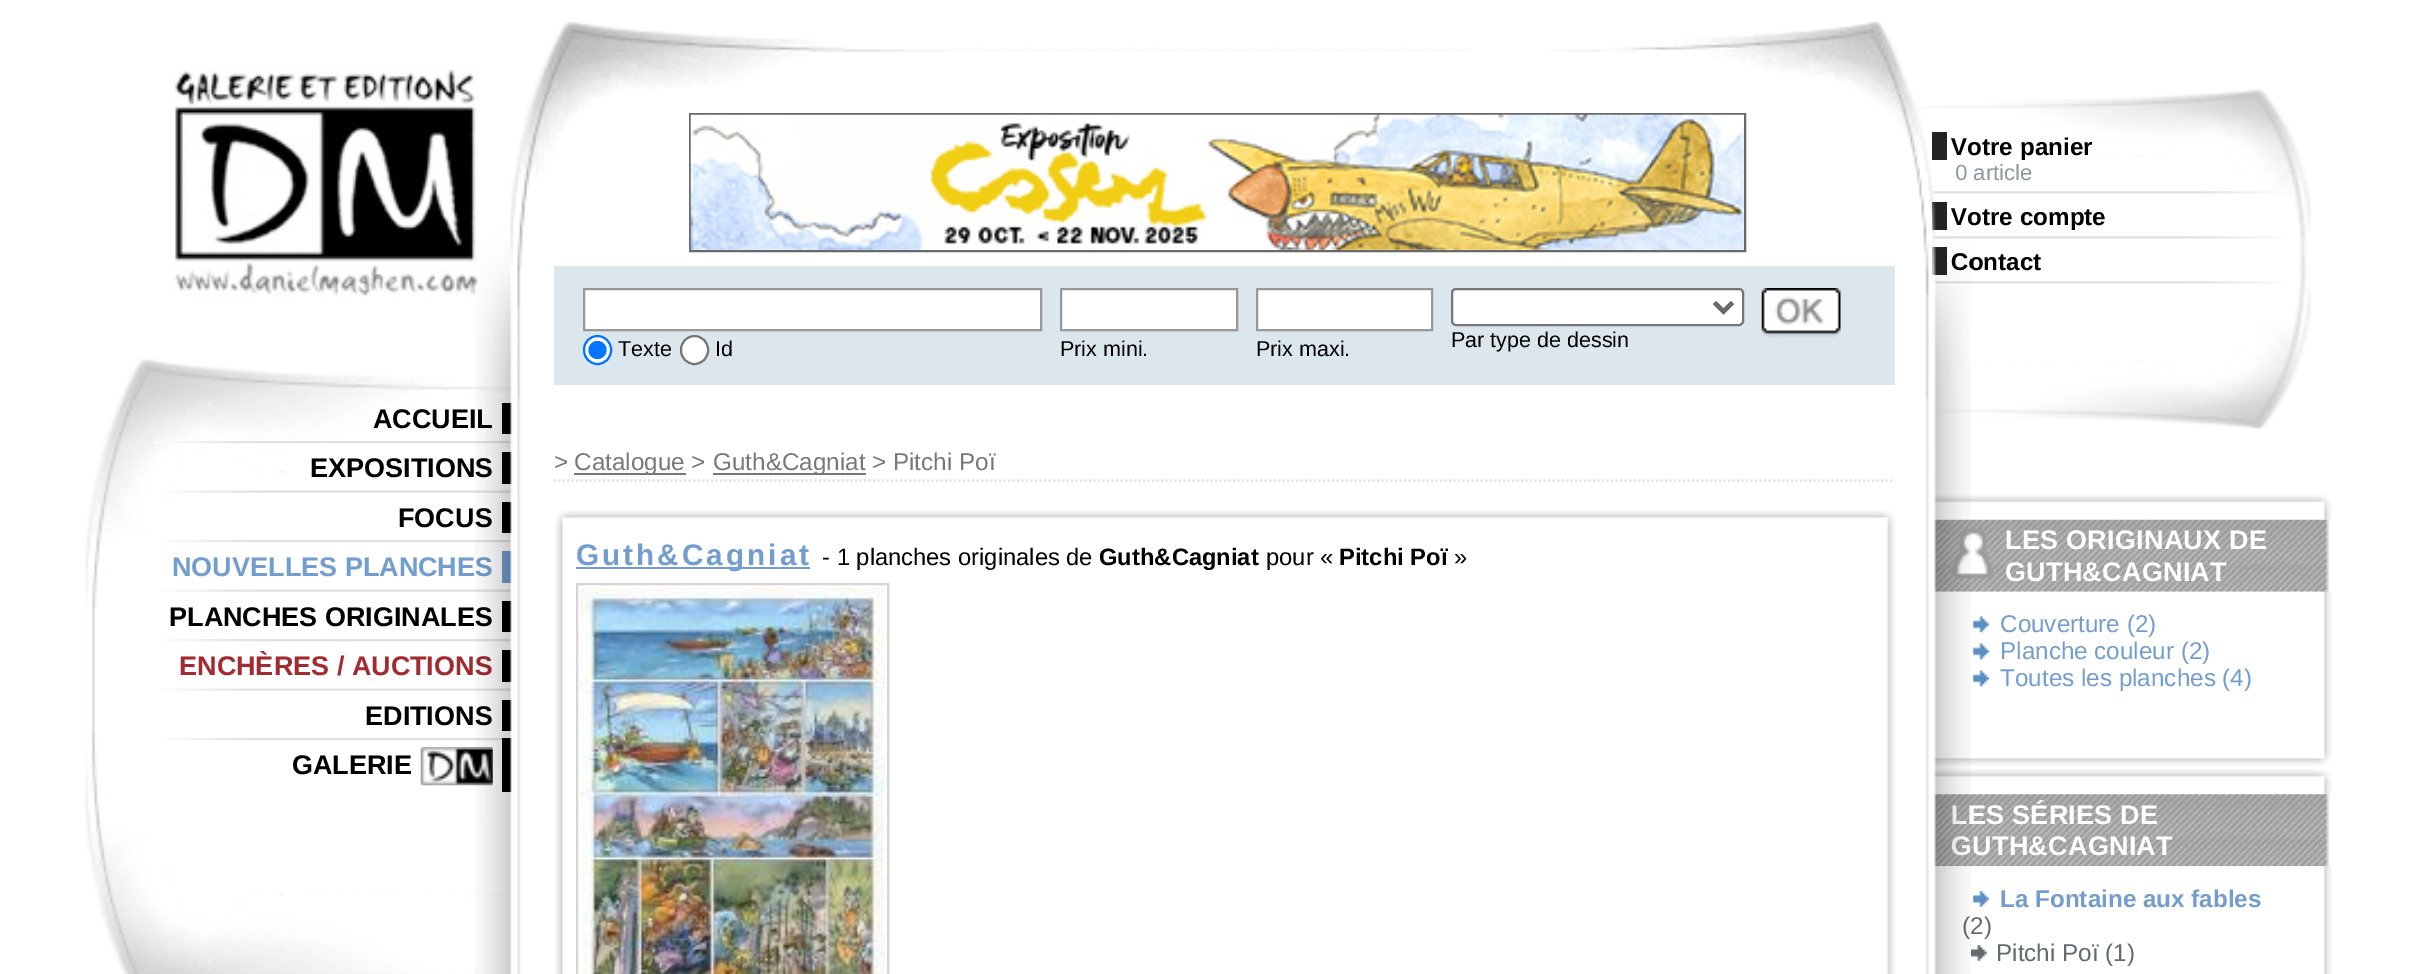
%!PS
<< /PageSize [2411 974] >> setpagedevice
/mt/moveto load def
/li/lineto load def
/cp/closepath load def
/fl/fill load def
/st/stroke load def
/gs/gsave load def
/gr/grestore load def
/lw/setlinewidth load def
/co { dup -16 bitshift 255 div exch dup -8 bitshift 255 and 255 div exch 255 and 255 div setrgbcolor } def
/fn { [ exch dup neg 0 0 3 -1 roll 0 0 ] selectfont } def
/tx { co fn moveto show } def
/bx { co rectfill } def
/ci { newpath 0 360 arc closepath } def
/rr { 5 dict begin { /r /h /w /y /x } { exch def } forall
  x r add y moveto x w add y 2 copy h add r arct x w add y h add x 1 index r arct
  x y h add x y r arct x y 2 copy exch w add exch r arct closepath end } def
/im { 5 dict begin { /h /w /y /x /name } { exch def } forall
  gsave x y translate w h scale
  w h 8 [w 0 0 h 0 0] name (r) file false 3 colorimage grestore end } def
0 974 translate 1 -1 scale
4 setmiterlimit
0 0 2411 974 16#FFFFFF bx
(media/1.raw) 174 69 304 228 im
(media/2.raw) 85 358 440 616 im
(media/3.raw) 153 441 360 3 im
502 403 11 31 16#000000 bx
(media/4.raw) 168 490 345 3 im
502 452 11 32 16#000000 bx
(media/5.raw) 163 540 349 3 im
502 502 10 31 16#000000 bx
(media/6.raw) 163 589 349 3 im
502 551 10 32 16#729DCE bx
(media/5.raw) 163 639 349 3 im
502 601 10 31 16#000000 bx
(media/6.raw) 163 688 349 3 im
502 650 10 32 16#000000 bx
(media/7.raw) 163 738 339 3 im
502 700 10 31 16#000000 bx
502 738 10 54 16#000000 bx
(media/8.raw) 420 747 73 39 im
(media/16.raw) 1907 88 404 342 im
(media/17.raw) 1932 191 364 3 im
1932 132 15 28 16#242424 bx
(media/18.raw) 1932 236 351 3 im
1932 202 15 28 16#242424 bx
(media/18.raw) 1932 281 351 3 im
1932 247 15 28 16#242424 bx
(media/19.raw) 1934 494 398 26 im
(media/20.raw) 1934 519 396 73 im
(media/21.raw) 1951 528 43 51 im
(media/22.raw) 1934 591 398 175 im
(media/23.raw) 1973 616 16 17 im
(media/23.raw) 1973 643 16 17 im
(media/23.raw) 1973 670 16 17 im
(media/24.raw) 1934 769 398 26 im
(media/25.raw) 1934 794 396 73 im
(media/26.raw) 1934 866 398 108 im
(media/27.raw) 1973 891 16 16 im
(media/28.raw) 1971 945 16 16 im
(ACCUEIL) 373 428 /LiberationSans-Bold 27 16#000000 tx
(EXPOSITIONS) 310 477 /LiberationSans-Bold 27 16#000000 tx
(FOCUS) 398 527 /LiberationSans-Bold 27 16#000000 tx
(NOUVELLES PLANCHES) 172 576 /LiberationSans-Bold 27 16#729DCE tx
(PLANCHES ORIGINALES) 169 626 /LiberationSans-Bold 27 16#000000 tx
(ENCHÈRES / AUCTIONS) 179 675 /LiberationSans-Bold 27 16#A12B31 tx
(EDITIONS) 365 725 /LiberationSans-Bold 27 16#000000 tx
(GALERIE) 292 774 /LiberationSans-Bold 27 16#000000 tx
(Votre panier) 1951 155 /LiberationSans-Bold 24.25 16#000000 tx
(0 article) 1955 180 /LiberationSans-Regular 22 16#8D989C tx
(Votre compte) 1951 225 /LiberationSans-Bold 24.25 16#000000 tx
(Contact) 1951 270 /LiberationSans-Bold 24.25 16#000000 tx
(media/9.raw) 475 20 1496 381 im
16#696969 co
2 lw
690 114 1055 137 rectstroke
(media/10.raw) 690 114 1054 136 im
554 266 1341 119 16#DBE6ED bx
(media/11.raw) 1761 288 80 50 im
(Par type de dessin) 1451 347 /LiberationSans-Regular 21.5 16#000000 tx
16#FFFFFF co
1452 289 291 36 4 rr gs fl gr
16#767676 co
st
16#696969 co
4.5 lw
1714.5 302.5 mt 1723.5 311.5 li 1732.5 302.5 li st
(Prix maxi.) 1256 356 /LiberationSans-Regular 21.5 16#000000 tx
16#FFFFFF co
1257 289 mt 1432 289 li 1432 330 li 1257 330 li cp gs fl gr
16#989898 co
2 lw
st
(Prix mini.) 1060 356 /LiberationSans-Regular 21.5 16#000000 tx
16#FFFFFF co
1061 289 mt 1237 289 li 1237 330 li 1061 330 li cp gs fl gr
16#989898 co
st
(Id) 715 356 /LiberationSans-Regular 21.5 16#000000 tx
16#FFFFFF co
681 336 27 28 13.5 rr gs fl gr
16#767676 co
st
(Texte) 618 356 /LiberationSans-Regular 21.5 16#000000 tx
16#FFFFFF co
584 336 27 28 13.5 rr gs fl gr
16#0075FF co
st
597.5 350 9 ci fl
16#FFFFFF co
584 289 mt 1041 289 li 1041 330 li 584 330 li cp gs fl gr
16#989898 co
st
/LiberationSans-Bold 27 fn
16#FFFFFF co
2005 549 mt .25 0 (LES ORIGINAUX DE) ashow
2005 581 mt .25 0 (GUTH&CAGNIAT) ashow
(Couverture \(2\)) 2000 632 /LiberationSans-Regular 24.25 16#729DCE tx
(Planche couleur \(2\)) 2000 659 /LiberationSans-Regular 24.25 16#729DCE tx
(Toutes les planches \(4\)) 2000 686 /LiberationSans-Regular 24.25 16#729DCE tx
/LiberationSans-Bold 27 fn
16#FFFFFF co
1951 824 mt .25 0 (LES SÉRIES DE) ashow
1951 855 mt .25 0 (GUTH&CAGNIAT) ashow
(La Fontaine aux fables) 2000 907 /LiberationSans-Bold 24.25 16#729DCE tx
(\(2\)) 1962 934 /LiberationSans-Regular 24.25 16#616B6E tx
(media/12.raw) 475 398 1496 576 im
(media/14.raw) 555 567 1341 407 im
16#D6D5D5 co
577 584 311 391 rectstroke
(media/15.raw) 580 587 305 387 im
(media/13.raw) 555 510 1341 57 im
(») 1454 565 /LiberationSans-Regular 23.75 16#000000 tx
(Pitchi Poï) 1339 565 /LiberationSans-Bold 23.75 16#000000 tx
(pour «) 1266 565 /LiberationSans-Regular 23.75 16#000000 tx
(Guth&Cagniat) 1099 565 /LiberationSans-Bold 23.75 16#000000 tx
(- 1 planches originales de) 822 565 /LiberationSans-Regular 23.75 16#000000 tx
576 567 234 2 16#729DCE bx
/LiberationSans-Bold 29.75 fn
576 565 mt 3 0 (Guth&Cagniat) ashow
713 473 153 2 16#787878 bx
(Guth&Cagniat > Pitchi Poï) 713 470 /LiberationSans-Regular 24.25 16#787878 tx
574 473 112 2 16#787878 bx
(Catalogue >) 574 470 /LiberationSans-Regular 24.25 16#787878 tx
(>) 554 470 /LiberationSans-Regular 24.25 16#787878 tx
16#E1E1E1 co
2.2 lw
[2.25 2.25] 0 setdash
553.5 480.5 mt 1892 480.5 li st
(Pitchi Poï \(1\)) 1996 961 /LiberationSans-Regular 24.25 16#616B6E tx
showpage
